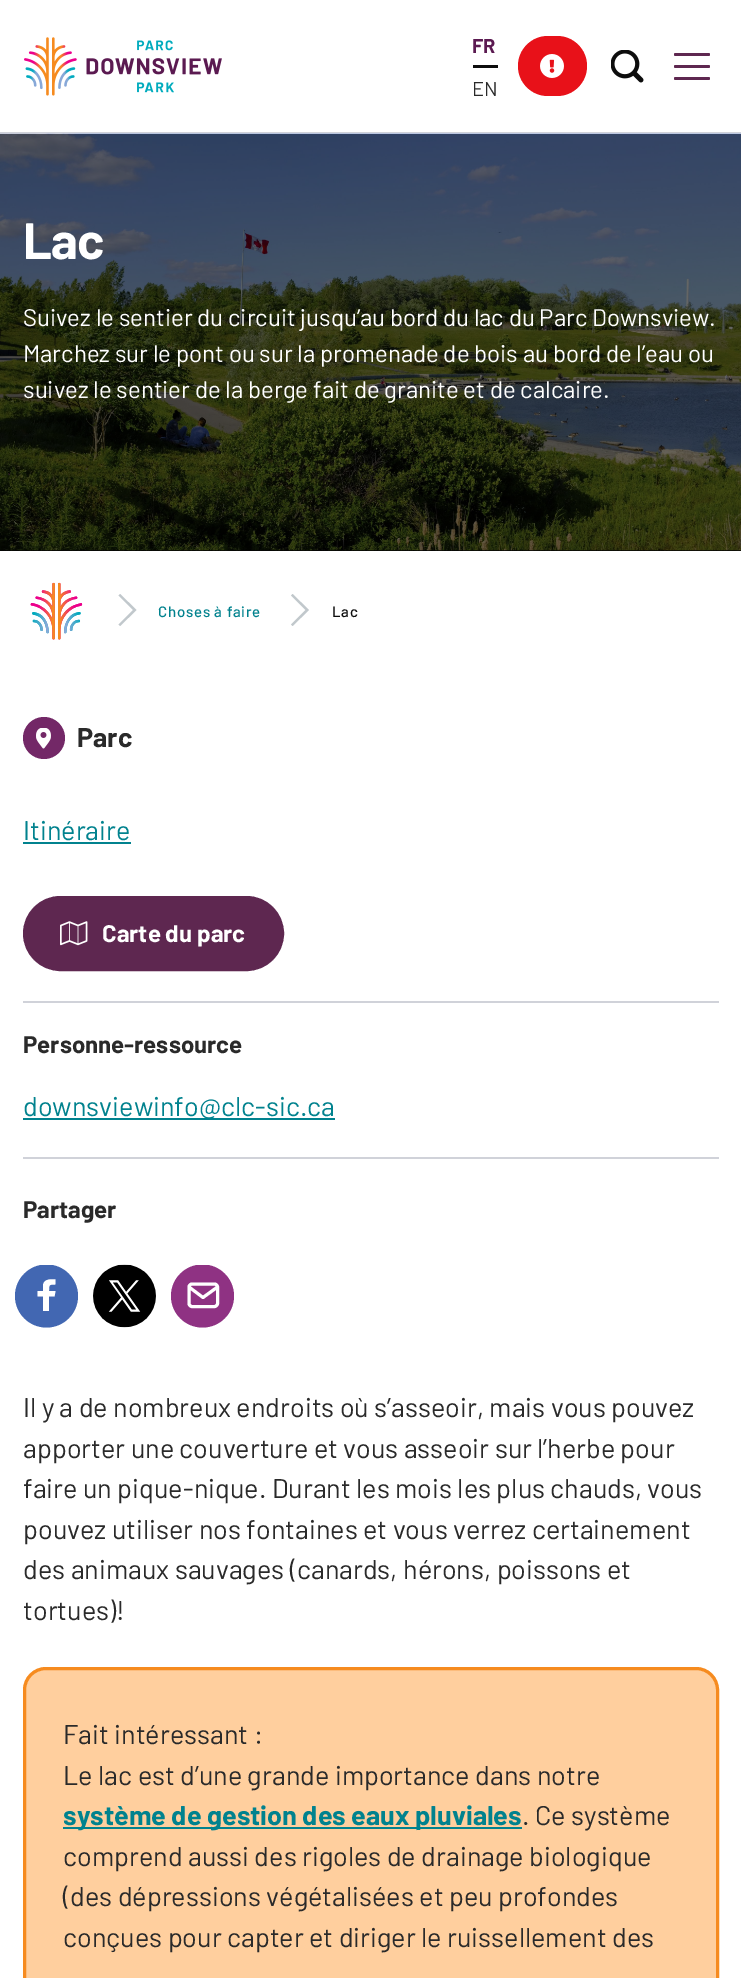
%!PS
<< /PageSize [741 1978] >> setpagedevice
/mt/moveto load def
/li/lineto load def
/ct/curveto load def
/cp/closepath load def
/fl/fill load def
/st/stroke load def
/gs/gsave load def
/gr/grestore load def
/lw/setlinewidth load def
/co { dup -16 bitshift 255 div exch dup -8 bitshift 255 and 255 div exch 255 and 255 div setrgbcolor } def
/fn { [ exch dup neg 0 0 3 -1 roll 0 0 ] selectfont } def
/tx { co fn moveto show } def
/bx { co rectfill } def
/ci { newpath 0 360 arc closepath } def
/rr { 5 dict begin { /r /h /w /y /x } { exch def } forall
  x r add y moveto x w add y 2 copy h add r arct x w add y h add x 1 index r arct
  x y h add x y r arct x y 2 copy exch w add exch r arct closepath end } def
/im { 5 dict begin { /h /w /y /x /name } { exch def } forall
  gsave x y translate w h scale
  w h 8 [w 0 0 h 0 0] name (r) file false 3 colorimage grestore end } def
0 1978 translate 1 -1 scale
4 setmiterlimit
0 0 741 1978 16#FFFFFF bx
0 132 741 2 16#D0D2D9 bx
(media/1.raw) 24 37 198 59 im
473 65 25 3 16#0D0D0D bx
16#E81119 co
518 36 69 60 30 rr fl
(media/2.raw) 540 54 24 24 im
(media/3.raw) 611 50 33 33 im
16#5E2750 co
674 65 36 3 1.5 rr fl
674 53 36 3 1.5 rr fl
674 77 36 3 1.5 rr fl
0 550 741 1 16#050505 bx
(media/4.raw) 0 133 741 418 im
(media/5.raw) 30 582 53 58 im
16#C1C8CC co
136.5 610 mt 120 594 li 118.5 595.5 li 133 610 li 118.5 624.5 li 120 626 li cp fl
309 610 mt 292.5 594 li 291 595.5 li 305.5 610 li 291 624.5 li 292.5 626 li cp fl
23 1001 696 2 16#D0D2D9 bx
16#732867 co
44 738 21 ci fl
(media/6.raw) 36 728 15 21 im
23 842 108 2 16#01828E bx
16#5E2750 co
24.5 897.5 258 72 36 rr gs fl gr
3 lw
st
(media/7.raw) 60 921 28 25 im
23 1157 696 2 16#D0D2D9 bx
23 1118 312 2 16#01828E bx
gs
15 1265 63 63 rectclip
16#4267B2 co
46.5 1296 31.5 ci fl
gr
16#FFFFFF co
49 1311 mt 49 1296.5 li 54.5 1296.5 li 55.5 1291 li 49 1291 li 49 1284.5 49 1284.5 55.5 1284.5 ct 55.5 1279.5 li 50.5 1279 44 1279 43 1285 ct 43 1291 li 37.5 1291 li 37.5 1296.5 li 43 1296.5 li 43 1311 li cp eofill
(media/8.raw) 93 1264 63 64 im
gs
171 1265 63 63 rectclip
16#8F3283 co
202.5 1296 31.5 ci fl
gr
1 setlinecap
1 setlinejoin
192 1284 mt 214.5 1284 li 216 1284 217.5 1285.5 217.5 1287 ct 217.5 1303.5 li 217.5 1305 216 1306.5 214.5 1306.5 ct 192 1306.5 li 190.5 1306.5 189 1305 189 1303.5 ct 189 1287 li 189 1285.5 190.5 1284 192 1284 ct cp 217.5 1287 mt 203 1297.5 li 189 1287 li st
16#FFCF9E co
24.5 1668.5 693 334 21.5 rr gs fl gr
16#F68B1F co
0 setlinecap
0 setlinejoin
st
63 1827 459 2 16#01828E bx
(FR) 472 53 /Barlow-Bold 20 16#5B1A51 tx
(EN) 472 96 /Barlow-Regular 20 16#2A2A2A tx
/Barlow-Bold 51 fn
16#FFFFFF co
23 259 mt -1 0 (Lac) ashow
(Suivez le sentier du circuit jusqu’au bord du lac du Parc Downsview.) 23 326 /Barlow-Regular 24 16#FFFFFF tx
(Marchez sur le pont ou sur la promenade de bois au bord de l’eau ou) 23 362 /Barlow-Regular 24 16#FFFFFF tx
(suivez le sentier de la berge fait de granite et de calcaire.) 23 398 /Barlow-Regular 24 16#FFFFFF tx
/Barlow-Medium 15 fn
16#01828E co
158 617 mt .75 0 (Choses à faire) ashow
16#0D0D0D co
332 617 mt .75 0 (Lac) ashow
(Parc) 77 747 /Barlow-Bold 27 16#2A2A2A tx
(Itinéraire) 23 840 /Barlow-Regular 27 16#01828E tx
(Carte du parc) 102 942 /Barlow-Bold 24 16#FFFFFF tx
(Personne-ressource) 23 1053 /Barlow-Bold 24 16#2A2A2A tx
(downsviewinfo@clc-sic.ca) 23 1116 /Barlow-Regular 27 16#01828E tx
(Partager) 23 1218 /Barlow-Bold 24 16#2A2A2A tx
(Il y a de nombreux endroits où s’asseoir, mais vous pouvez) 23 1417 /Barlow-Regular 27 16#2A2A2A tx
(apporter une couverture et vous asseoir sur l’herbe pour) 23 1458 /Barlow-Regular 27 16#2A2A2A tx
(faire un pique-nique. Durant les mois les plus chauds, vous) 23 1498 /Barlow-Regular 27 16#2A2A2A tx
(pouvez utiliser nos fontaines et vous verrez certainement) 23 1539 /Barlow-Regular 27 16#2A2A2A tx
(des animaux sauvages \(canards, hérons, poissons et) 23 1579 /Barlow-Regular 27 16#2A2A2A tx
(tortues\)!) 23 1620 /Barlow-Regular 27 16#2A2A2A tx
(Fait intéressant :) 63 1744 /Barlow-Regular 27 16#2A2A2A tx
(Le lac est d’une grande importance dans notre) 63 1785 /Barlow-Regular 27 16#2A2A2A tx
(système de gestion des eaux pluviales) 63 1825 /Barlow-Bold 27 16#01828E tx
(. Ce système) 522 1825 /Barlow-Regular 27 16#2A2A2A tx
(comprend aussi des rigoles de drainage biologique) 63 1866 /Barlow-Regular 27 16#2A2A2A tx
(\(des dépressions végétalisées et peu profondes) 63 1906 /Barlow-Regular 27 16#2A2A2A tx
(conçues pour capter et diriger le ruissellement des) 63 1947 /Barlow-Regular 27 16#2A2A2A tx
showpage
